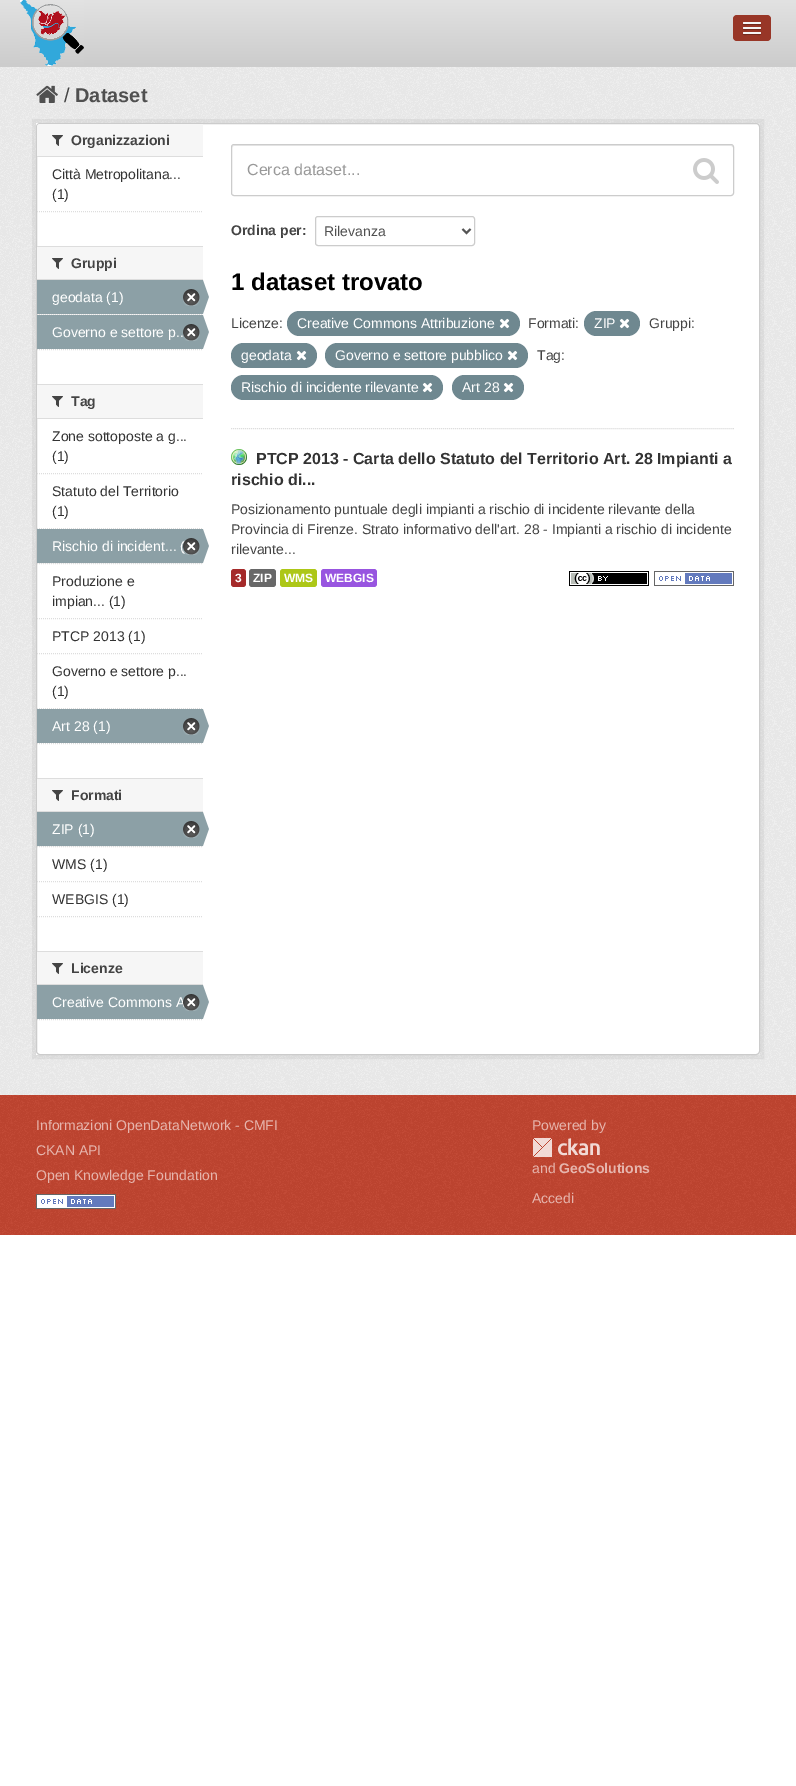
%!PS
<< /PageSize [796 1786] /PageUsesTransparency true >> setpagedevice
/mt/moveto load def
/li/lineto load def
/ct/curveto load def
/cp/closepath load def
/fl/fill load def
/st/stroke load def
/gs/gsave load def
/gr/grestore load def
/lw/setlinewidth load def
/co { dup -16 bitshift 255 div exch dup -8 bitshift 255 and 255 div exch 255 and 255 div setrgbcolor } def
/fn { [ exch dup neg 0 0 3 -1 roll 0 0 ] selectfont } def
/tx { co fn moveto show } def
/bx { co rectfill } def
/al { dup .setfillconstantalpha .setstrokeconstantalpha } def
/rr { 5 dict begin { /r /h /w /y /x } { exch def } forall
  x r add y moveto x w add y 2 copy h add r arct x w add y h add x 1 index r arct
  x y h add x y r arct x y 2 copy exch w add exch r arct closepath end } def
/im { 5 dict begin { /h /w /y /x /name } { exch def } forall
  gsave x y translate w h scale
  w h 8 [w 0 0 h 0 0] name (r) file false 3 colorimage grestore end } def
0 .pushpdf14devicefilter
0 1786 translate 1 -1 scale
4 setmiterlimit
0 0 796 1786 16#FFFFFF bx
gs 0 0 mt 796 0 li 796 66 li 0 66 li cp clip newpath
<< /ShadingType 2 /ColorSpace /DeviceRGB /Coords [398 0 398 66] /Extend [true true] /Function << /FunctionType 2 /Domain [0 1] /C0 [.886 .886 .886] /C1 [.8 .8 .8] /N 1 >> >> shfill gr
0 66 796 1 16#CCCCCC bx
(media/1.raw) 20 0 64 66 im
16#983627 co
733 15 38 26 4 rr fl
16#72291D co
743 23.5 mt 742 25.5 746.5 25 746.5 25 ct 757.5 25 li 757.5 25 762 25.5 761 23.5 ct 760 24.5 753.5 24 752 24 ct 750.5 24 744 24.5 743 23.5 ct cp fl
16#F5F5F5 co
743 22 18 2 1 rr fl
16#72291D co
743 28.5 mt 742 30.5 746.5 30 746.5 30 ct 757.5 30 li 757.5 30 762 30.5 761 28.5 ct 760 29.5 753.5 29 752 29 ct 750.5 29 744 29.5 743 28.5 ct cp fl
16#F5F5F5 co
743 27 18 2 1 rr fl
16#72291D co
743 33.5 mt 742 35.5 746.5 35 746.5 35 ct 757.5 35 li 757.5 35 762 35.5 761 33.5 ct 760 34.5 753.5 34 752 34 ct 750.5 34 744 34.5 743 33.5 ct cp fl
16#F5F5F5 co
743 32 18 2 1 rr fl
0 67 796 1028 16#EEEEEE bx
(media/2.raw) 0 67 796 1028 im
(media/3.raw) 36 85 22 18 im
0.05 al
16#000000 co
4 lw
34 121 728 936 rectstroke
1 al
16#FFFFFF co
36 123 724 932 4 rr fl
36 123 3 932 16#FFFFFF bx
16#CCCCCC co
1 lw
36.5 123.5 723 931 3.5 rr st
16#F6F6F6 co
40 124 mt 203 124 li 203 157 li 37 157 li 37 127 li 37 125.5 38.5 124 40 124 ct cp fl
37 156 166 1 16#DDDDDD bx
(media/4.raw) 52 135 11 11 im
[1 1] 0 setdash
37 211.5 mt 203 211.5 li st
37 247 166 32 16#F6F6F6 bx
37 246 166 1 16#DDDDDD bx
37 279 166 1 16#DDDDDD bx
(media/4.raw) 52 258 11 11 im
38 314 165 1 16#F6F6F6 bx
16#DDDDDD co
37 314.5 mt 203 314.5 li st
37 280 166 34 16#8CA0A6 bx
(media/5.raw) 183 289 17 17 im
(media/6.raw) 203 280 6 34 im
37 315 166 34 16#8CA0A6 bx
(media/7.raw) 183 324 17 17 im
(media/6.raw) 203 315 6 34 im
16#DDDDDD co
37 349.5 mt 203 349.5 li st
37 385 166 33 16#F6F6F6 bx
37 384 166 1 16#DDDDDD bx
37 418 166 1 16#DDDDDD bx
(media/4.raw) 52 396 11 11 im
37 473.5 mt 203 473.5 li st
37 528.5 mt 203 528.5 li st
38 563 165 1 16#F6F6F6 bx
16#DDDDDD co
37 563.5 mt 203 563.5 li st
37 529 166 34 16#8CA0A6 bx
(media/6.raw) 203 529 6 34 im
16#DDDDDD co
37 618.5 mt 203 618.5 li st
37 653.5 mt 203 653.5 li st
37 708.5 mt 203 708.5 li st
37 709 166 34 16#8CA0A6 bx
(media/5.raw) 183 718 17 17 im
(media/6.raw) 203 709 6 34 im
16#DDDDDD co
37 743.5 mt 203 743.5 li st
37 779 166 32 16#F6F6F6 bx
37 778 166 1 16#DDDDDD bx
37 811 166 1 16#DDDDDD bx
(media/4.raw) 52 790 11 11 im
38 846 165 1 16#F6F6F6 bx
16#DDDDDD co
37 846.5 mt 203 846.5 li st
37 812 166 34 16#8CA0A6 bx
(media/5.raw) 183 821 17 17 im
(media/6.raw) 203 812 6 34 im
16#DDDDDD co
37 881.5 mt 203 881.5 li st
37 916.5 mt 203 916.5 li st
37 952 166 32 16#F6F6F6 bx
37 951 166 1 16#DDDDDD bx
37 984 166 1 16#DDDDDD bx
(media/4.raw) 52 963 11 11 im
37 985 166 34 16#8CA0A6 bx
(media/6.raw) 203 985 6 34 im
16#DDDDDD co
37 1019.5 mt 203 1019.5 li st
231 428.5 mt 734 428.5 li st
16#ECECEC co
234 146 mt 731 146 li 732 146 733 147 733 148 ct 733 147 733 145 731 145 ct 234 145 li 232 146 li 232 148 li 232 147 233 146 234 146 ct cp fl
16#CCCCCC co
[] 0 setdash
231.5 144.5 502 51 2.5 rr st
(media/10.raw) 693 158 26 26 im
315.5 216.5 159 29 2.5 rr st
16#555555 co
2 lw
462.5 229 mt 466.5 233 li 470.5 229 li st
16#6F8890 co
287 311 233 25 12.5 rr fl
(media/11.raw) 499 318 11 11 im
584 311 56 25 12.5 rr fl
(media/11.raw) 619 318 11 11 im
231 343 86 25 12.5 rr fl
(media/11.raw) 296 350 11 11 im
325 343 203 25 12.5 rr fl
(media/11.raw) 507 350 11 11 im
231 375 212 25 12.5 rr fl
(media/11.raw) 422 382 11 11 im
452 375 72 25 12.5 rr fl
(media/11.raw) 503 382 11 11 im
(media/12.raw) 231 449 16 16 im
16#A52A2A co
231 569 15 18 3 rr fl
16#686868 co
249 569 27 18 3 rr fl
16#ADC717 co
280 569 37 18 3 rr fl
16#9855E0 co
321 569 56 18 3 rr fl
(media/13.raw) 569 571 80 15 im
(media/14.raw) 654 571 80 15 im
0 1095 796 140 16#C14531 bx
(media/15.raw) 0 1095 796 140 im
(media/14.raw) 36 1194 80 15 im
(media/16.raw) 533 1138 67 19 im
(/) 64 102 /LiberationSans-Regular 20 16#444444 tx
(Dataset) 75 102 /LiberationSans-Bold 20 16#505050 tx
(Organizzazioni) 71 145 /LiberationSans-Bold 14 16#444444 tx
(Città Metropolitana...) 52 179 /LiberationSans-Regular 14 16#333333 tx
(\(1\)) 52 199 /LiberationSans-Regular 14 16#333333 tx
(Gruppi) 71 268 /LiberationSans-Bold 14 16#444444 tx
(geodata \(1\)) 52 302 /LiberationSans-Regular 14 16#FFFFFF tx
(Governo e settore p..) 52 337 /LiberationSans-Regular 14 16#FFFFFF tx
(Tag) 71 406 /LiberationSans-Bold 14 16#444444 tx
(Zone sottoposte a g...) 52 441 /LiberationSans-Regular 14 16#333333 tx
(\(1\)) 52 461 /LiberationSans-Regular 14 16#333333 tx
(Statuto del Territorio) 52 496 /LiberationSans-Regular 14 16#333333 tx
(\(1\)) 52 516 /LiberationSans-Regular 14 16#333333 tx
(Rischio di incident... \() 52 551 /LiberationSans-Regular 14 16#FFFFFF tx
(media/8.raw) 183 538 17 17 im
(Produzione e) 52 586 /LiberationSans-Regular 14 16#333333 tx
(impian... \(1\)) 52 606 /LiberationSans-Regular 14 16#333333 tx
(PTCP 2013 \(1\)) 52 641 /LiberationSans-Regular 14 16#333333 tx
(Governo e settore p...) 52 676 /LiberationSans-Regular 14 16#333333 tx
(\(1\)) 52 696 /LiberationSans-Regular 14 16#333333 tx
(Art 28 \(1\)) 52 731 /LiberationSans-Regular 14 16#FFFFFF tx
(Formati) 71 800 /LiberationSans-Bold 14 16#444444 tx
(ZIP \(1\)) 52 834 /LiberationSans-Regular 14 16#FFFFFF tx
(WMS \(1\)) 52 869 /LiberationSans-Regular 14 16#333333 tx
(WEBGIS \(1\)) 52 904 /LiberationSans-Regular 14 16#333333 tx
(Licenze) 71 973 /LiberationSans-Bold 14 16#444444 tx
(Creative Commons A) 52 1007 /LiberationSans-Regular 14 16#FFFFFF tx
(media/9.raw) 183 994 17 17 im
(Cerca dataset...) 247 175 /LiberationSans-Regular 16 16#999999 tx
(Ordina per:) 231 235 /LiberationSans-Bold 14 16#444444 tx
(Rilevanza) 324 236 /LiberationSans-Regular 14 16#505050 tx
(1 dataset trovato) 231 290 /LiberationSans-Bold 24 16#000000 tx
(Licenze:) 231 328 /LiberationSans-Regular 14 16#444444 tx
(Creative Commons Attribuzione) 297 328 /LiberationSans-Regular 14 16#FFFFFF tx
(Formati:) 528 328 /LiberationSans-Regular 14 16#444444 tx
(ZIP) 594 328 /LiberationSans-Regular 14 16#FFFFFF tx
(Gruppi:) 649 328 /LiberationSans-Regular 14 16#444444 tx
(geodata) 241 360 /LiberationSans-Regular 14 16#FFFFFF tx
(Governo e settore pubblico) 335 360 /LiberationSans-Regular 14 16#FFFFFF tx
(Tag:) 537 360 /LiberationSans-Regular 14 16#444444 tx
(Rischio di incidente rilevante) 241 392 /LiberationSans-Regular 14 16#FFFFFF tx
(Art 28) 462 392 /LiberationSans-Regular 14 16#FFFFFF tx
(PTCP 2013 - Carta dello Statuto del Territorio Art. 28 Impianti a) 256 464 /LiberationSans-Bold 16 16#333333 tx
(rischio di...) 231 485 /LiberationSans-Bold 16 16#333333 tx
(Posizionamento puntuale degli impianti a rischio di incidente rilevante della) 231 514 /LiberationSans-Regular 14 16#444444 tx
(Provincia di Firenze. Strato informativo dell'art. 28 - Impianti a rischio di incidente) 231 534 /LiberationSans-Regular 14 16#444444 tx
(rilevante...) 231 554 /LiberationSans-Regular 14 16#444444 tx
(3) 235 582 /LiberationSans-Bold 12 16#FFFFFF tx
(ZIP) 253 582 /LiberationSans-Bold 12 16#FFFFFF tx
(WMS) 284 582 /LiberationSans-Bold 12 16#FFFFFF tx
(WEBGIS) 325 582 /LiberationSans-Bold 12 16#FFFFFF tx
(Informazioni OpenDataNetwork - CMFI) 36 1130 /LiberationSans-Regular 14 16#E6B5AD tx
(CKAN API) 36 1155 /LiberationSans-Regular 14 16#E6B5AD tx
(Open Knowledge Foundation) 36 1180 /LiberationSans-Regular 14 16#E6B5AD tx
(Powered by) 532 1130 /LiberationSans-Regular 14 16#E6B5AD tx
(and) 532 1173 /LiberationSans-Regular 14 16#E6B5AD tx
(GeoSolutions) 559 1173 /LiberationSans-Bold 14 16#E6B5AD tx
(Accedi) 532 1203 /LiberationSans-Regular 14 16#E6B5AD tx
.poppdf14devicefilter showpage
